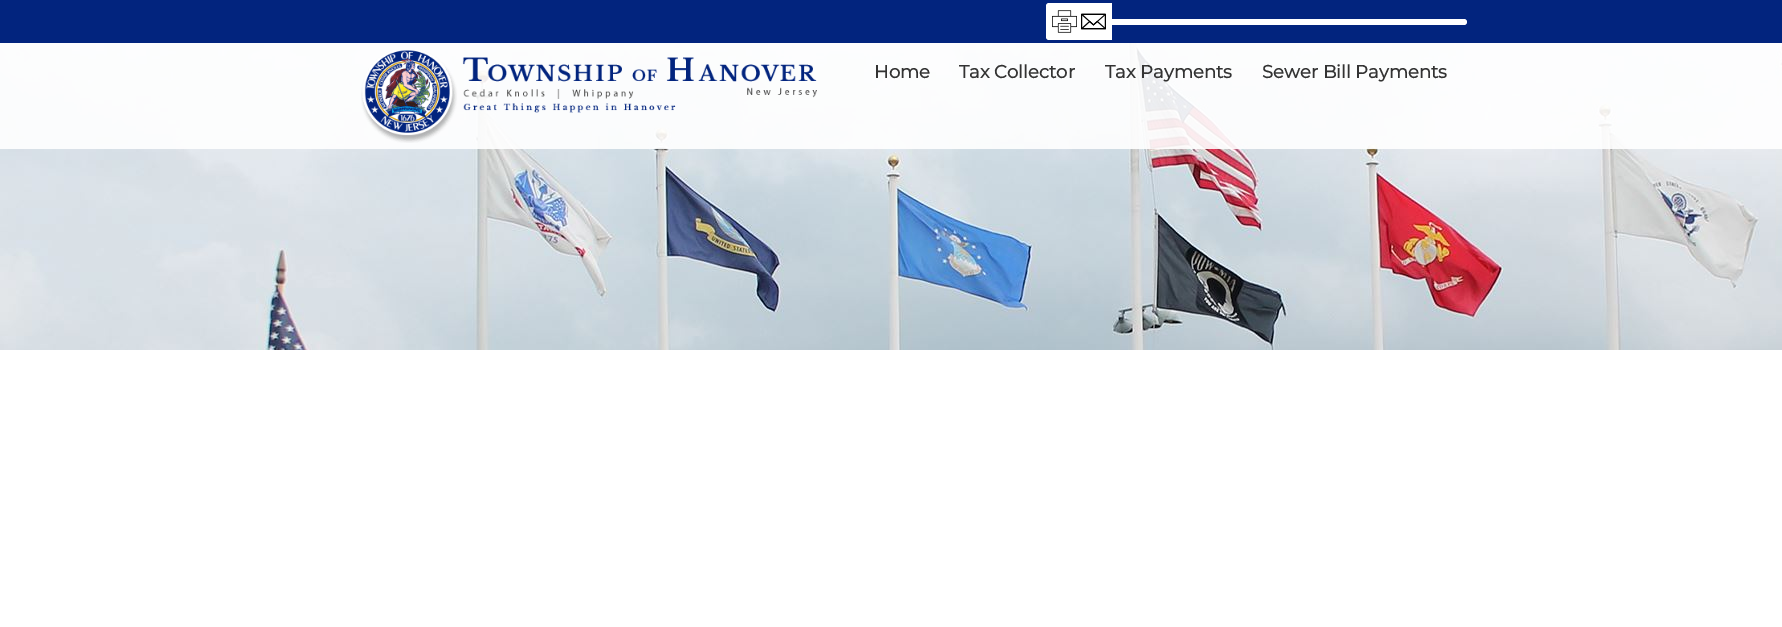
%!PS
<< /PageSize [1782 627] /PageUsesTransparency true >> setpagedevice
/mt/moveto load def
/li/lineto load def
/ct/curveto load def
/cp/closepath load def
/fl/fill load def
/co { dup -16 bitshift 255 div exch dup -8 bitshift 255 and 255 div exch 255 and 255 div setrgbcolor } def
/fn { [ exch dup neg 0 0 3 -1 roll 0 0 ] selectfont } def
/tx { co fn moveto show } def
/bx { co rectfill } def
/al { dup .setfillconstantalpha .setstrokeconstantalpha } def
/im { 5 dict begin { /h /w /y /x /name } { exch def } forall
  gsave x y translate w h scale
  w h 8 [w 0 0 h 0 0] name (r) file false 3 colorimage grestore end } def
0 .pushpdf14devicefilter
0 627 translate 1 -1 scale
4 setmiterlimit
0 0 1782 627 16#FFFFFF bx
(media/1.raw) 0 43 1782 307 im
0 0 1782 43 16#02247E bx
16#FFFFFF co
1049 3 mt 1112 3 li 1112 40 li 1049 40 li 1047.5 40 1046 38.5 1046 37 ct 1046 6 li 1046 4.5 1047.5 3 1049 3 ct cp fl
(media/2.raw) 1052 10 25 23 im
(media/3.raw) 1081 13 25 17 im
1112 19 mt 1464 19 li 1465.5 19 1467 20.5 1467 22 ct 1467 23.5 1465.5 25 1464 25 ct 1112 25 li cp fl
0.9 al
0 43 1782 106 16#FFFFFF bx
1 al
(media/4.raw) 361 50 456 93 im
(Home) 874 78 /Montserrat-Bold 18 16#333333 tx
(Tax Collector) 959 78 /Montserrat-Bold 18 16#333333 tx
(Tax Payments) 1105 78 /Montserrat-Bold 18 16#333333 tx
(Sewer Bill Payments) 1262 78 /Montserrat-Bold 18 16#333333 tx
.poppdf14devicefilter showpage
